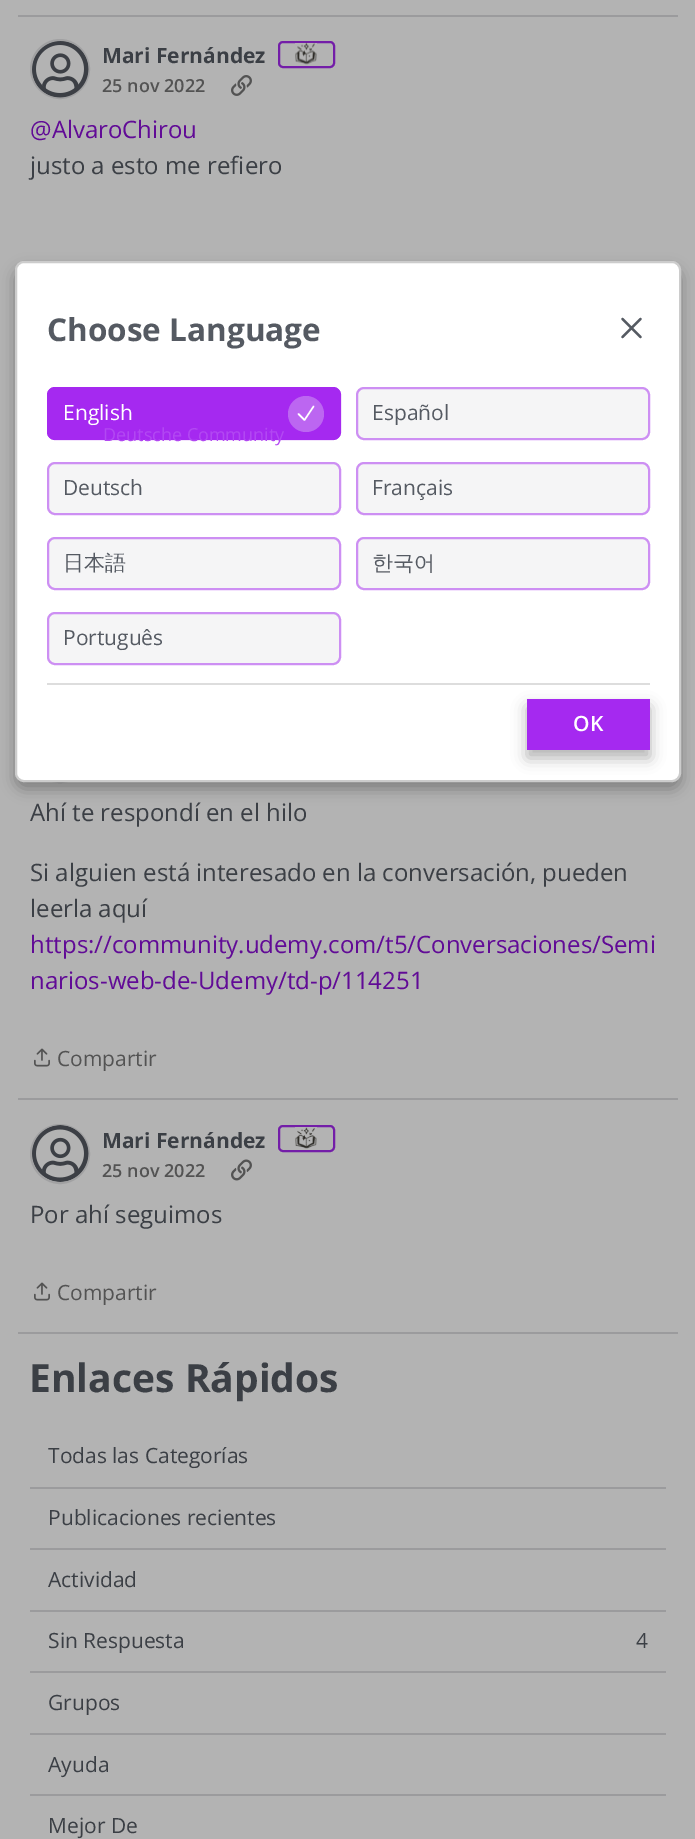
%!PS
<< /PageSize [695 1839] /PageUsesTransparency true >> setpagedevice
/mt/moveto load def
/li/lineto load def
/fl/fill load def
/st/stroke load def
/gs/gsave load def
/gr/grestore load def
/lw/setlinewidth load def
/co { dup -16 bitshift 255 div exch dup -8 bitshift 255 and 255 div exch 255 and 255 div setrgbcolor } def
/fn { [ exch dup neg 0 0 3 -1 roll 0 0 ] selectfont } def
/tx { co fn moveto show } def
/bx { co rectfill } def
/al { dup .setfillconstantalpha .setstrokeconstantalpha } def
/ci { newpath 0 360 arc closepath } def
/rr { 5 dict begin { /r /h /w /y /x } { exch def } forall
  x r add y moveto x w add y 2 copy h add r arct x w add y h add x 1 index r arct
  x y h add x y r arct x y 2 copy exch w add exch r arct closepath end } def
/sh { 12 dict begin { /a /b /q /h /w /y /x } { exch def } forall gsave /was 0 def
  9 -2 -9 { dup b mul 4 div /e exch def 1 sub .425 mul 2.718 exch exp 1 add a .99 .min exch div /now exch def
    1 1 now sub 1 was sub div sub al /was now def
    w h .min e 2 mul add 0 gt { x e sub y e sub w e 2 mul add h e 2 mul add
      q e add b .6 mul add w h .min 2 div e add .min 0 .max rr fill } if } for grestore end } def
/im { 5 dict begin { /h /w /y /x /name } { exch def } forall
  gsave x y translate w h scale
  w h 8 [w 0 0 h 0 0] name (r) file false 3 colorimage grestore end } def
0 .pushpdf14devicefilter
0 1839 translate 1 -1 scale
4 setmiterlimit
0 0 695 1839 16#B3B3B3 bx
18 15 660 2 16#9B9B9D bx
16#A1A1A2 co
2 lw
60 69 29 ci st
(media/1.raw) 32 41 57 57 im
16#731DA8 co
279 42 55 25 4 rr st
(media/2.raw) 295 42 22 23 im
(media/3.raw) 231 75 21 21 im
16#A1A1A2 co
60 753 29 ci st
(media/4.raw) 34 1048 16 19 im
18 1098 660 2 16#9B9B9D bx
16#A1A1A2 co
60 1154 29 ci st
(media/5.raw) 32 1125 57 57 im
16#731DA8 co
279 1126 55 25 4 rr st
(media/6.raw) 295 1127 22 22 im
(media/7.raw) 231 1159 21 22 im
(media/4.raw) 34 1282 16 19 im
18 1332 660 2 16#9B9B9D bx
30 1487 636 2 16#9B9B9D bx
30 1548 636 2 16#9B9B9D bx
30 1610 636 2 16#9B9B9D bx
30 1671 636 2 16#9B9B9D bx
30 1733 636 2 16#9B9B9D bx
30 1794 636 2 16#9B9B9D bx
16#000000 co
15 269 666 520 9 7.5 .3 sh
16#FFFFFF co
16 262 664 519 8 rr gs fl gr
16#CCCCCC co
st
16#555A62 co
2.2 lw
1 setlinecap
1 setlinejoin
622.5 337 mt 640.5 319 li 622.5 319 mt 640.5 337 li st
16#A529F0 co
47 387 294 53 8 rr fl
0.5 al
2 lw
0 setlinecap
0 setlinejoin
48 388 292 51 7 rr st
1 al
16#BC66F1 co
306 414 18 ci fl
16#FFFFFF co
1.5 lw
1 setlinecap
1 setlinejoin
298.5 414 mt 304.5 420 li 313.5 406.5 li st
16#F5F5F6 co
356 387 294 53 8 rr fl
0.5 al
16#A529F0 co
2 lw
0 setlinecap
0 setlinejoin
357 388 292 51 7 rr st
1 al
16#F5F5F6 co
47 462 294 53 8 rr fl
0.5 al
16#A529F0 co
48 463 292 51 7 rr st
1 al
16#F5F5F6 co
356 462 294 53 8 rr fl
0.5 al
16#A529F0 co
357 463 292 51 7 rr st
1 al
16#F5F5F6 co
47 537 294 53 8 rr fl
0.5 al
16#A529F0 co
48 538 292 51 7 rr st
1 al
16#F5F5F6 co
356 537 294 53 8 rr fl
0.5 al
16#A529F0 co
357 538 292 51 7 rr st
1 al
16#F5F5F6 co
47 612 294 53 8 rr fl
0.5 al
16#A529F0 co
48 613 292 51 7 rr st
1 al
47 683 603 2 16#DDDDDD bx
16#000000 co
527 707 123 51 0 7.5 .3 sh
527 699 123 51 16#A529F0 bx
(Mari Fernández) 102 63 /OpenSans-Bold 21 16#3B3F45 tx
(25 nov 2022) 102 92 /OpenSans-SemiBold 18 16#535353 tx
(@AlvaroChirou) 30 138 /OpenSans-Regular 24 16#610B96 tx
(justo a esto me refiero) 30 174 /OpenSans-Regular 24 16#3B3F45 tx
(Ahí te respondí en el hilo) 30 821 /OpenSans-Regular 24 16#3B3F45 tx
(Si alguien está interesado en la conversación, pueden) 30 881 /OpenSans-Regular 24 16#3B3F45 tx
(leerla aquí) 30 917 /OpenSans-Regular 24 16#3B3F45 tx
(https://community.udemy.com/t5/Conversaciones/Semi) 30 953 /OpenSans-Regular 24 16#610B96 tx
(narios-web-de-Udemy/td-p/114251) 30 989 /OpenSans-Regular 24 16#610B96 tx
(Compartir) 57 1066 /OpenSans-Regular 21 16#535353 tx
(Mari Fernández) 102 1148 /OpenSans-Bold 21 16#3B3F45 tx
(25 nov 2022) 102 1177 /OpenSans-SemiBold 18 16#535353 tx
(Por ahí seguimos) 30 1223 /OpenSans-Regular 24 16#3B3F45 tx
(Compartir) 57 1300 /OpenSans-Regular 21 16#535353 tx
(Enlaces Rápidos) 29 1392 /OpenSans-Bold 39 16#3B3F45 tx
(Todas las Categorías) 48 1463 /OpenSans-Regular 21 16#3B3F45 tx
(Publicaciones recientes) 48 1525 /OpenSans-Regular 21 16#3B3F45 tx
(Actividad) 48 1587 /OpenSans-Regular 21 16#3B3F45 tx
(Sin Respuesta) 48 1648 /OpenSans-Regular 21 16#3B3F45 tx
(4) 636 1648 /OpenSans-Regular 21 16#3B3F45 tx
(Grupos) 48 1710 /OpenSans-Regular 21 16#3B3F45 tx
(Ayuda) 48 1772 /OpenSans-Regular 21 16#3B3F45 tx
(Mejor De) 48 1833 /OpenSans-Regular 21 16#3B3F45 tx
(Choose Language) 47 341 /OpenSans-Bold 31.5 16#555A62 tx
(English) 63 420 /OpenSans-Regular 21 16#FFFFFF tx
(Español) 372 420 /OpenSans-Regular 21 16#555A62 tx
(Deutsche Community) 103 441 /OpenSans-Regular 18 16#B248F2 tx
(Deutsch) 63 495 /OpenSans-Regular 21 16#555A62 tx
(Français) 372 495 /OpenSans-Regular 21 16#555A62 tx
(日本語) 63 570 /WenQuanYiZenHei-Medium 21 16#555A62 tx
(한국어) 372 570 /WenQuanYiZenHei-Medium 21 16#555A62 tx
(Português) 63 645 /OpenSans-Regular 21 16#555A62 tx
(OK) 573 731 /OpenSans-SemiBold 21 16#FFFFFF tx
.poppdf14devicefilter showpage
